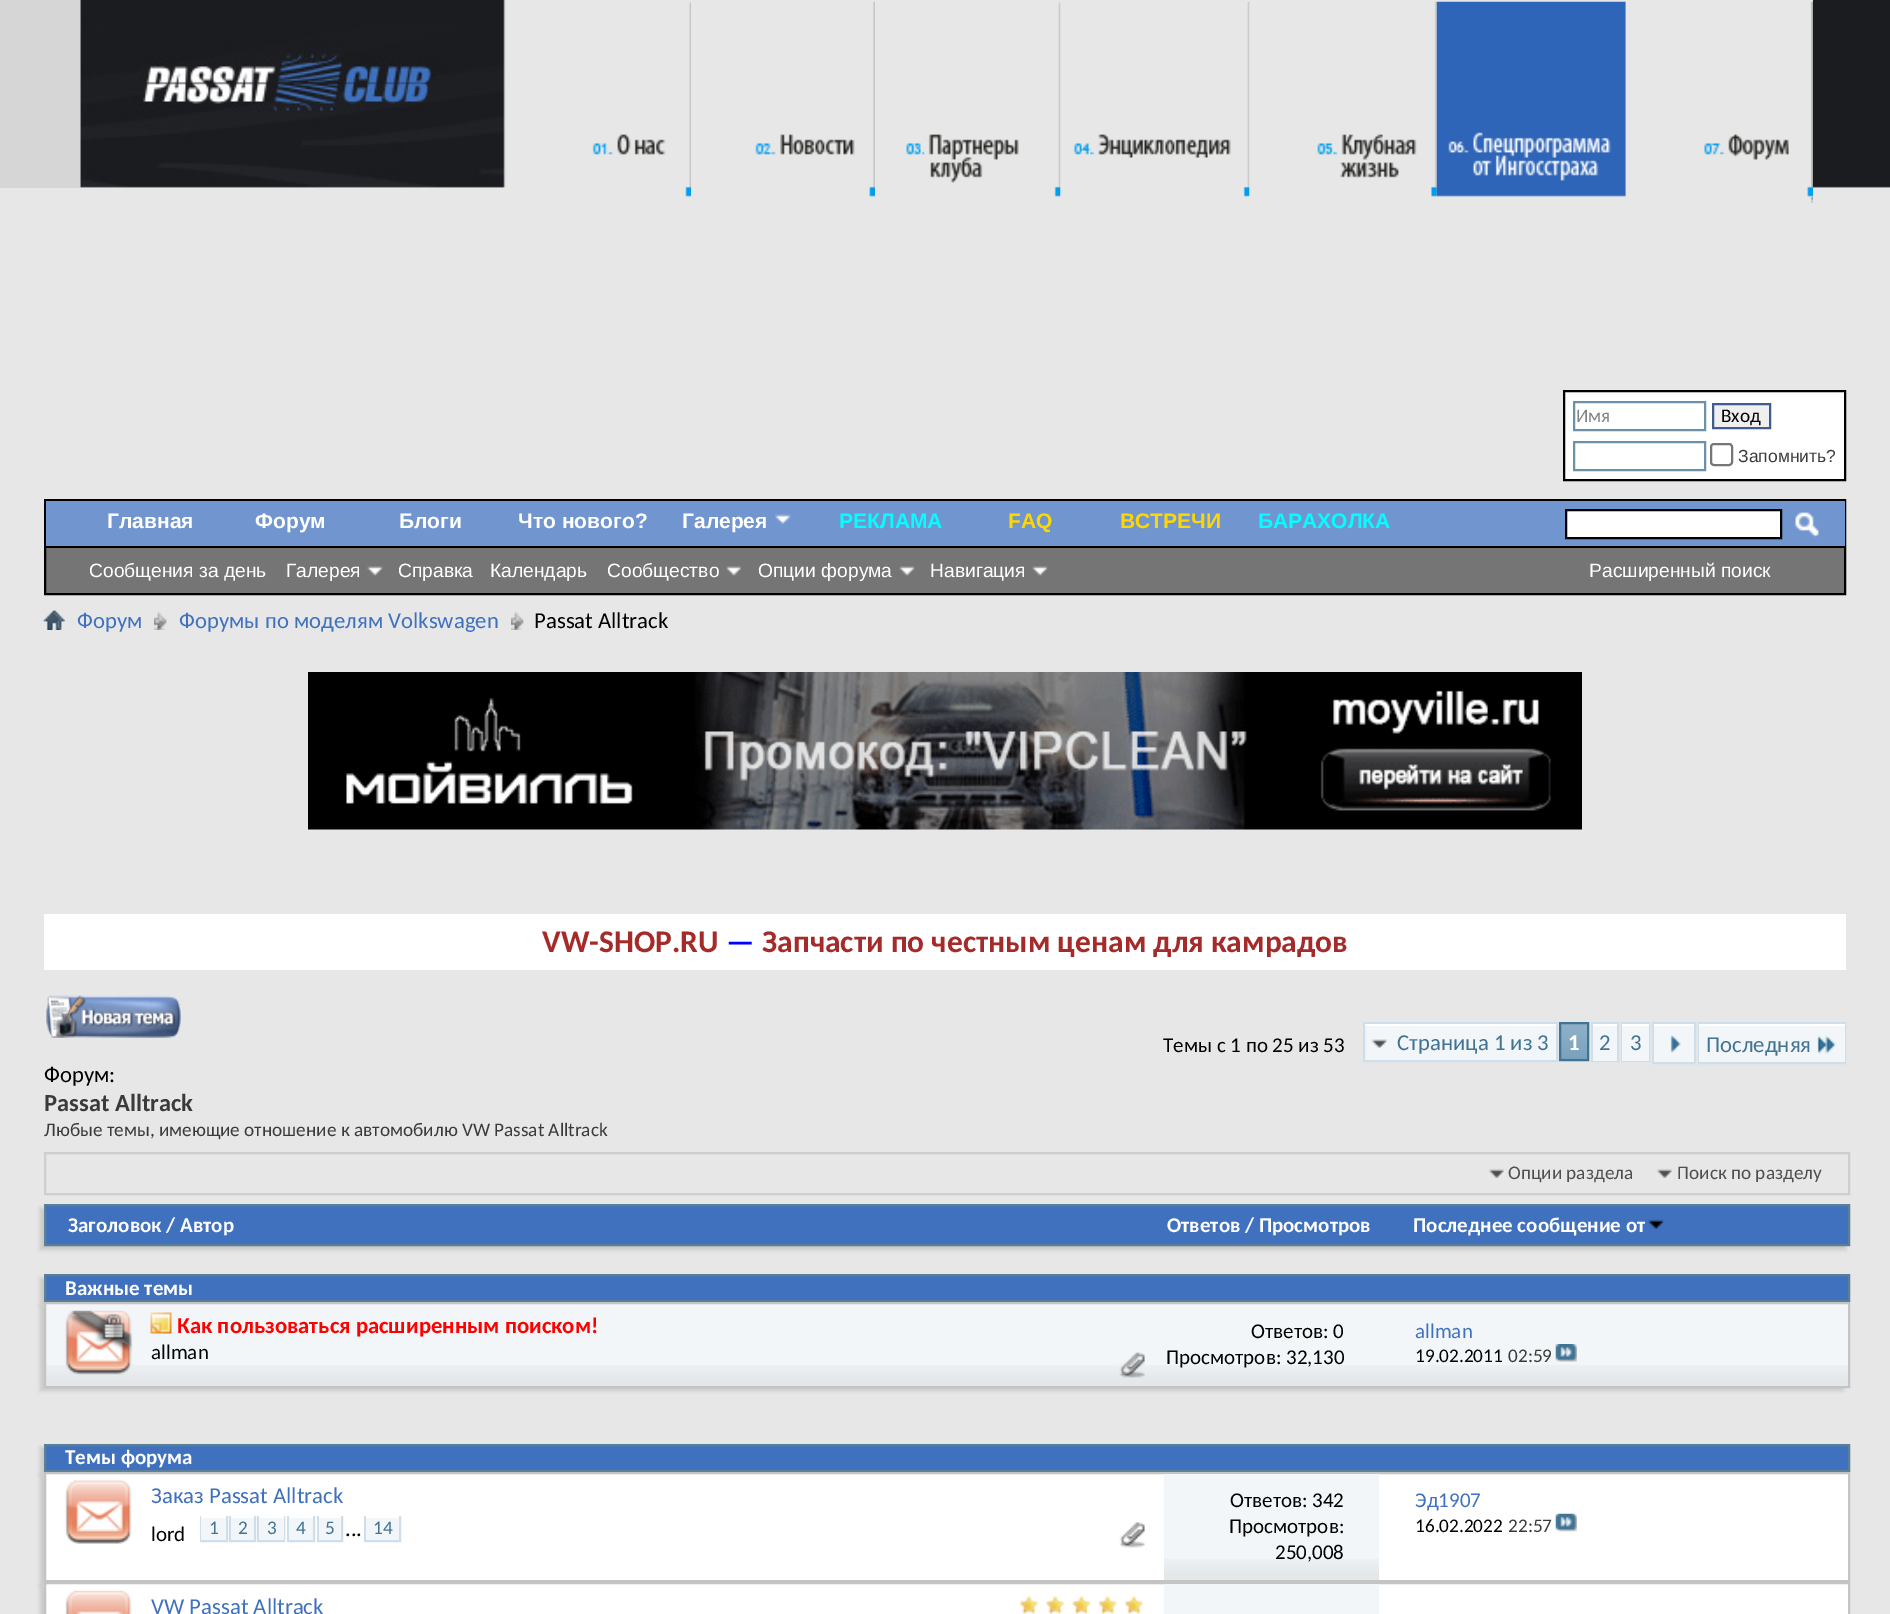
%!PS
<< /PageSize [1890 1614] /PageUsesTransparency true >> setpagedevice
/mt/moveto load def
/li/lineto load def
/cp/closepath load def
/fl/fill load def
/st/stroke load def
/gs/gsave load def
/gr/grestore load def
/lw/setlinewidth load def
/co { dup -16 bitshift 255 div exch dup -8 bitshift 255 and 255 div exch 255 and 255 div setrgbcolor } def
/fn { [ exch dup neg 0 0 3 -1 roll 0 0 ] selectfont } def
/tx { co fn moveto show } def
/bx { co rectfill } def
/al { dup .setfillconstantalpha .setstrokeconstantalpha } def
/rr { 5 dict begin { /r /h /w /y /x } { exch def } forall
  x r add y moveto x w add y 2 copy h add r arct x w add y h add x 1 index r arct
  x y h add x y r arct x y 2 copy exch w add exch r arct closepath end } def
/sh { 12 dict begin { /a /b /q /h /w /y /x } { exch def } forall gsave /was 0 def
  9 -2 -9 { dup b mul 4 div /e exch def 1 sub .425 mul 2.718 exch exp 1 add a .99 .min exch div /now exch def
    1 1 now sub 1 was sub div sub al /was now def
    w h .min e 2 mul add 0 gt { x e sub y e sub w e 2 mul add h e 2 mul add
      q e add b .6 mul add w h .min 2 div e add .min 0 .max rr fill } if } for grestore end } def
/im { 5 dict begin { /h /w /y /x /name } { exch def } forall
  gsave x y translate w h scale
  w h 8 [w 0 0 h 0 0] name (r) file false 3 colorimage grestore end } def
0 .pushpdf14devicefilter
0 1614 translate 1 -1 scale
4 setmiterlimit
0 0 1890 1614 16#E7E7E7 bx
0 0 79 188 16#D6D6D6 bx
(media/1.raw) 79 0 427 188 im
(media/2.raw) 592 2 100 195 im
(media/3.raw) 691 1 184 196 im
(media/4.raw) 906 2 155 195 im
(media/5.raw) 1060 1 190 196 im
(media/6.raw) 1249 1 188 196 im
(media/7.raw) 1436 1 190 196 im
(media/8.raw) 1625 1 188 202 im
(media/9.raw) 1813 0 77 188 im
16#FFFFFF co
1564 391 mt 1845 391 li 1845 480 li 1564 480 li cp gs fl gr
16#000000 co
2 lw
st
16#6B91AB co
1574 402 131 28 rectstroke
16#EFEFEF co
1713 404 mt 1770 404 li 1770 428 li 1713 428 li cp gs fl gr
16#415D8D co
st
16#6B91AB co
1574 442 131 28 rectstroke
16#767676 co
1711 444 21 21 3 rr st
46 548 1798 45 16#757575 bx
16#000000 co
45 500 1800 94 rectstroke
46 501 1799 45 16#7196CF bx
46 546 1799 2 16#000000 bx
(media/10.raw) 367 566 16 10 im
(media/11.raw) 726 566 16 10 im
(media/10.raw) 899 566 16 10 im
(media/12.raw) 1032 566 16 10 im
(media/13.raw) 775 514 16 10 im
16#FFFFFF co
1566 510 mt 1781 510 li 1781 538 li 1566 538 li cp gs fl gr
16#000000 co
st
(media/14.raw) 1795 512 24 26 im
(media/15.raw) 43 610 22 20 im
(media/16.raw) 154 612 13 18 im
(media/17.raw) 511 612 13 18 im
(media/18.raw) 308 672 1274 158 im
44 914 1802 56 16#FFFFFF bx
(media/19.raw) 46 995 135 43 im
1365 1026 191 34 16#F2F6F8 bx
16#CEDFEB co
1364 1023 193 38 rectstroke
(media/20.raw) 1371 1039 17 10 im
1365 1024 191 2 16#FFFFFF bx
1561 1024 26 35 16#759FBB bx
(media/21.raw) 1561 1024 26 34 im
16#417394 co
1560 1023 28 37 rectstroke
16#CEDFEB co
1592 1023 26 38 rectstroke
1593 1026 24 35 16#F2F6F8 bx
1593 1024 24 2 16#FFFFFF bx
16#CEDFEB co
1622 1023 27 38 rectstroke
1622 1026 27 35 16#F2F6F8 bx
1622 1024 27 2 16#FFFFFF bx
16#CEDFEB co
1653 1023 42 40 rectstroke
1654 1026 40 36 16#F2F6F8 bx
1654 1024 40 2 16#FFFFFF bx
(media/22.raw) 1670 1035 11 18 im
16#CEDFEB co
1699 1023 146 40 rectstroke
1699 1026 146 36 16#F2F6F8 bx
1699 1024 146 2 16#FFFFFF bx
(media/23.raw) 1817 1035 19 19 im
16#CECECE co
45 1153 1804 41 rectstroke
(media/24.raw) 1489 1168 16 12 im
(media/24.raw) 1657 1168 16 12 im
16#C8C8C8 co
40 1208 1806 42 0 2 1 sh
16#3F71BE co
45 1205 mt 1849 1205 li 1849 1245 li 45 1245 li cp gs fl gr
16#5A7F97 co
st
(media/25.raw) 1648 1219 17 10 im
16#C8C8C8 co
40 1278 1806 28 0 2 1 sh
16#3F71BE co
45 1275 mt 1849 1275 li 1849 1301 li 45 1301 li cp gs fl gr
16#5A7F97 co
st
16#C8C8C8 co
40 1306 1803 85 0 2 1 sh
46 1304 1802 82 16#F2F6F8 bx
(media/26.raw) 46 1365 1802 21 im
16#C4C4C4 co
45 1303 1804 84 rectstroke
(media/27.raw) 65 1310 68 65 im
(media/28.raw) 150 1312 22 22 im
(media/29.raw) 1119 1352 26 26 im
1164 1365 215 21 16#F2F6F8 bx
(media/30.raw) 1164 1365 215 21 im
(media/31.raw) 1555 1344 22 18 im
16#C8C8C8 co
40 1447 1806 28 0 2 1 sh
16#3F71BE co
45 1445 mt 1849 1445 li 1849 1471 li 45 1471 li cp gs fl gr
16#5A7F97 co
st
16#C8C8C8 co
40 1475 1803 111 0 2 1 sh
16#FFFFFF co
45 1473 mt 1849 1473 li 1849 1581 li 45 1581 li cp gs fl gr
16#C4C4C4 co
st
(media/32.raw) 65 1480 67 64 im
16#CEDFEB co
201 1517 26 24 rectstroke
201 1518 25 22 16#F2F6F8 bx
201 1516 25 2 16#FFFFFF bx
16#CEDFEB co
230 1517 25 24 rectstroke
231 1518 23 22 16#F2F6F8 bx
231 1516 23 2 16#FFFFFF bx
16#CEDFEB co
258 1517 26 24 rectstroke
259 1518 25 22 16#F2F6F8 bx
259 1516 25 2 16#FFFFFF bx
16#CEDFEB co
288 1517 26 24 rectstroke
289 1518 24 22 16#F2F6F8 bx
289 1516 24 2 16#FFFFFF bx
16#CEDFEB co
318 1517 24 24 rectstroke
319 1518 22 22 16#F2F6F8 bx
319 1516 22 2 16#FFFFFF bx
16#CEDFEB co
365 1517 35 24 rectstroke
366 1518 33 22 16#F2F6F8 bx
366 1516 33 2 16#FFFFFF bx
(media/33.raw) 1119 1522 26 26 im
1164 1474 215 106 16#F2F6F8 bx
(media/34.raw) 1164 1559 215 21 im
(media/35.raw) 1555 1513 22 19 im
16#C8C8C8 co
40 1586 1803 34 0 2 1 sh
16#FFFFFF co
45 1583 mt 1849 1583 li 1849 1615 li 45 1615 li cp gs fl gr
16#C4C4C4 co
st
(media/36.raw) 65 1590 67 24 im
(media/37.raw) 1019 1595 125 19 im
1164 1584 215 30 16#F2F6F8 bx
(Имя) 1576 422 /Carlito-Regular 19.25 16#828282 tx
(Вход) 1721 422 /Carlito-Regular 19.25 16#000000 tx
(Запомнить?) 1738 462 /LiberationSans-Regular 17.5 16#3A3A3A tx
(Форум) 255 528 /LiberationSans-Bold 21 16#FFFFFF tx
(Сообщения за день) 89 577 /LiberationSans-Regular 19.25 16#FFFFFF tx
(Галерея) 286 577 /LiberationSans-Regular 19.25 16#FFFFFF tx
(Справка) 398 577 /LiberationSans-Regular 19.25 16#FFFFFF tx
(Календарь) 490 577 /LiberationSans-Regular 19.25 16#FFFFFF tx
(Сообщество) 607 577 /LiberationSans-Regular 19.25 16#FFFFFF tx
(Опции форума) 758 577 /LiberationSans-Regular 19.25 16#FFFFFF tx
(Навигация) 930 577 /LiberationSans-Regular 19.25 16#FFFFFF tx
(Главная) 107 528 /LiberationSans-Bold 21 16#FFFFFF tx
(Блоги) 399 528 /LiberationSans-Bold 21 16#FFFFFF tx
(Что нового?) 518 528 /LiberationSans-Bold 21 16#FFFFFF tx
(Галерея) 682 528 /LiberationSans-Bold 21 16#FFFFFF tx
(РЕКЛАМА) 839 528 /LiberationSans-Bold 21 16#00FFFF tx
(FAQ) 1008 528 /LiberationSans-Bold 21 16#FFD700 tx
(ВСТРЕЧИ) 1120 528 /LiberationSans-Bold 21 16#FFD700 tx
(БАРАХОЛКА) 1258 528 /LiberationSans-Bold 21 16#00FFFF tx
(Расширенный поиск) 1589 577 /LiberationSans-Regular 19.25 16#FFFFFF tx
(Форум) 77 628 /Carlito-Regular 22.75 16#3F71BE tx
(Форумы по моделям Volkswagen) 179 628 /Carlito-Regular 22.75 16#3F71BE tx
(Passat Alltrack) 534 628 /Carlito-Regular 22.75 16#000000 tx
(VW-SHOP.RU) 542 952 /Carlito-Bold 31.5 16#A52A2A tx
(—) 726 952 /Carlito-Bold 31.5 16#0000FF tx
(Запчасти по честным ценам для камрадов) 762 952 /Carlito-Bold 31.5 16#A52A2A tx
(Темы с 1 по 25 из 53) 1163 1052 /Carlito-Regular 21 16#000000 tx
(Страница 1 из 3) 1397 1050 /Carlito-Regular 22.75 16#417394 tx
(1) 1568 1050 /Carlito-Bold 22.75 16#FFFFFF tx
(2) 1599 1050 /Carlito-Regular 22.75 16#417394 tx
(3) 1630 1050 /Carlito-Regular 22.75 16#417394 tx
(Последняя) 1706 1052 /Carlito-Regular 22.75 16#417394 tx
(Форум:) 44 1082 /Carlito-Regular 22.75 16#000000 tx
(Passat Alltrack) 44 1111 /Carlito-Bold 24.5 16#3A3A3A tx
(Любые темы, имеющие отношение к автомобилю VW Passat Alltrack) 44 1136 /Carlito-Regular 19.25 16#3A3A3A tx
(Опции раздела) 1508 1179 /Carlito-Regular 19.25 16#4E4E4E tx
(Поиск по разделу) 1677 1179 /Carlito-Regular 19.25 16#4E4E4E tx
(Заголовок / Автор) 68 1232 /Carlito-Bold 21 16#FFFFFF tx
(Ответов / Просмотров) 1167 1232 /Carlito-Bold 21 16#FFFFFF tx
(Последнее сообщение от) 1413 1232 /Carlito-Bold 21 16#FFFFFF tx
(Важные темы) 65 1295 /Carlito-Bold 21 16#FFFFFF tx
(Как пользоваться расширенным поиском!) 177 1333 /Carlito-Bold 22.75 16#FF0000 tx
(allman) 151 1359 /Carlito-Regular 21 16#000000 tx
(Ответов: 0) 1251 1338 /Carlito-Regular 21 16#000000 tx
(Просмотров: 32,130) 1166 1364 /Carlito-Regular 21 16#000000 tx
(allman) 1415 1338 /Carlito-Regular 21 16#3F71BE tx
(19.02.2011) 1415 1362 /Carlito-Regular 19.25 16#000000 tx
(02:59) 1508 1362 /Carlito-Regular 19.25 16#3A3A3A tx
(Темы форума) 65 1464 /Carlito-Bold 21 16#FFFFFF tx
(Заказ Passat Alltrack) 151 1503 /Carlito-Regular 22.75 16#3F71BE tx
(lord) 151 1541 /Carlito-Regular 21 16#000000 tx
(1) 209 1534 /Carlito-Regular 19.25 16#417394 tx
(2) 238 1534 /Carlito-Regular 19.25 16#417394 tx
(3) 267 1534 /Carlito-Regular 19.25 16#417394 tx
(4) 296 1534 /Carlito-Regular 19.25 16#417394 tx
(5) 325 1534 /Carlito-Regular 19.25 16#417394 tx
(14) 373 1534 /Carlito-Regular 19.25 16#417394 tx
(...) 345 1536 /Carlito-Regular 22.75 16#000000 tx
(Ответов: 342) 1230 1507 /Carlito-Regular 21 16#000000 tx
(Просмотров:) 1229 1533 /Carlito-Regular 21 16#000000 tx
(250,008) 1275 1559 /Carlito-Regular 21 16#000000 tx
(Эд1907) 1415 1507 /Carlito-Regular 21 16#3F71BE tx
(16.02.2022) 1415 1532 /Carlito-Regular 19.25 16#000000 tx
(22:57) 1508 1532 /Carlito-Regular 19.25 16#3A3A3A tx
(VW Passat Alltrack) 151 1614 /Carlito-Regular 22.75 16#3F71BE tx
.poppdf14devicefilter showpage
